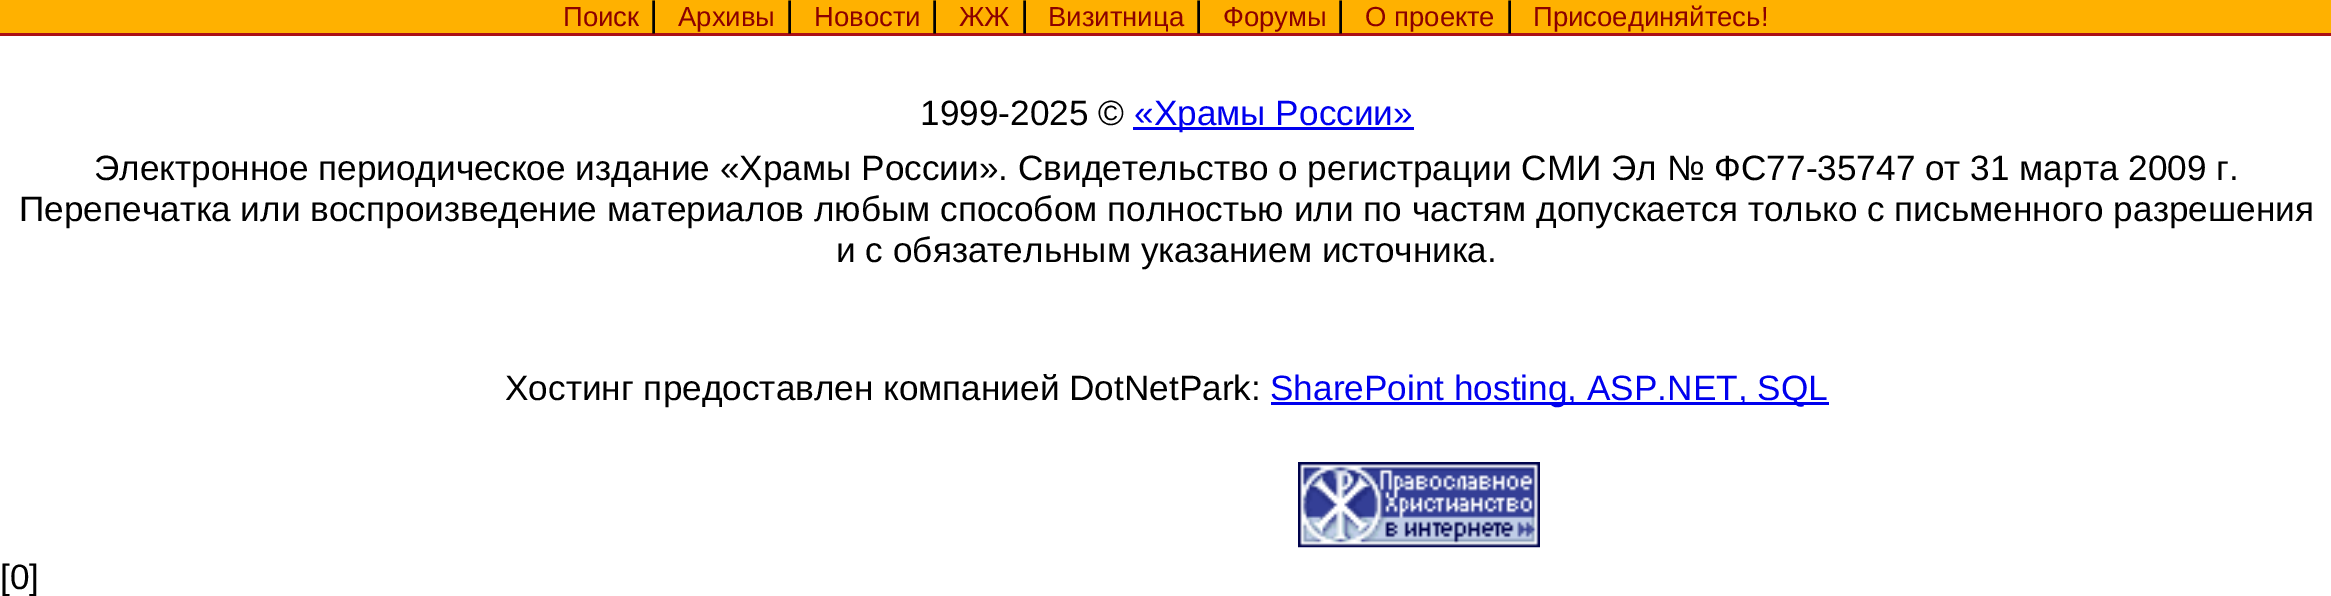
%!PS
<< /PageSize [2331 596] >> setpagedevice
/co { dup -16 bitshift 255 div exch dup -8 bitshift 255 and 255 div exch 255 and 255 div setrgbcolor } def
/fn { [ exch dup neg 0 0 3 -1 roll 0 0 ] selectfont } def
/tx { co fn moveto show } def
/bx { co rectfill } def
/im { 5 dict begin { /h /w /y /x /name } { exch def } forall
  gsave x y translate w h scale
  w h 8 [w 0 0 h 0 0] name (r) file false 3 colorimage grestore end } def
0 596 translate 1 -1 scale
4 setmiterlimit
0 0 2331 596 16#FFFFFF bx
0 0 2331 33 16#FFB100 bx
0 33 2331 3 16#AA0F15 bx
1133 127 281 3 16#0000EE bx
1271 402 558 3 16#0000EE bx
(media/1.raw) 1298 462 242 86 im
(Поиск) 563 26 /LiberationSans-Regular 27.5 16#8B0000 tx
(|) 649 26 /LiberationSans-Regular 35.2 16#000000 tx
(Архивы) 678 26 /LiberationSans-Regular 27.5 16#8B0000 tx
(|) 785 26 /LiberationSans-Regular 35.2 16#000000 tx
(Новости) 814 26 /LiberationSans-Regular 27.5 16#8B0000 tx
(|) 930 26 /LiberationSans-Regular 35.2 16#000000 tx
(ЖЖ) 959 26 /LiberationSans-Regular 27.5 16#8B0000 tx
(|) 1020 26 /LiberationSans-Regular 35.2 16#000000 tx
(Визитница) 1048 26 /LiberationSans-Regular 27.5 16#8B0000 tx
(|) 1194 26 /LiberationSans-Regular 35.2 16#000000 tx
(Форумы) 1223 26 /LiberationSans-Regular 27.5 16#8B0000 tx
(|) 1336 26 /LiberationSans-Regular 35.2 16#000000 tx
(О проекте) 1365 26 /LiberationSans-Regular 27.5 16#8B0000 tx
(|) 1505 26 /LiberationSans-Regular 35.2 16#000000 tx
(Присоединяйтесь!) 1533 26 /LiberationSans-Regular 27.5 16#8B0000 tx
(1999-2025 ©) 920 125 /LiberationSans-Regular 35.2 16#000000 tx
(«Храмы России») 1134 125 /LiberationSans-Regular 35.2 16#0000EE tx
(Электронное периодическое издание «Храмы России». Свидетельство о регистрации СМИ Эл № ФС77-35747 от 31 марта 2009 г.) 94 180 /LiberationSans-Regular 35.2 16#000000 tx
(Перепечатка или воспроизведение материалов любым способом полностью или по частям допускается только с письменного разрешения) 19 221 /LiberationSans-Regular 35.2 16#000000 tx
(и с обязательным указанием источника.) 836 262 /LiberationSans-Regular 35.2 16#000000 tx
(Хостинг предоставлен компанией DotNetPark:) 505 400 /LiberationSans-Regular 35.2 16#000000 tx
(SharePoint hosting, ASP.NET, SQL) 1270 400 /LiberationSans-Regular 35.2 16#0000EE tx
([0]) 0 589 /LiberationSans-Regular 35.2 16#000000 tx
showpage
